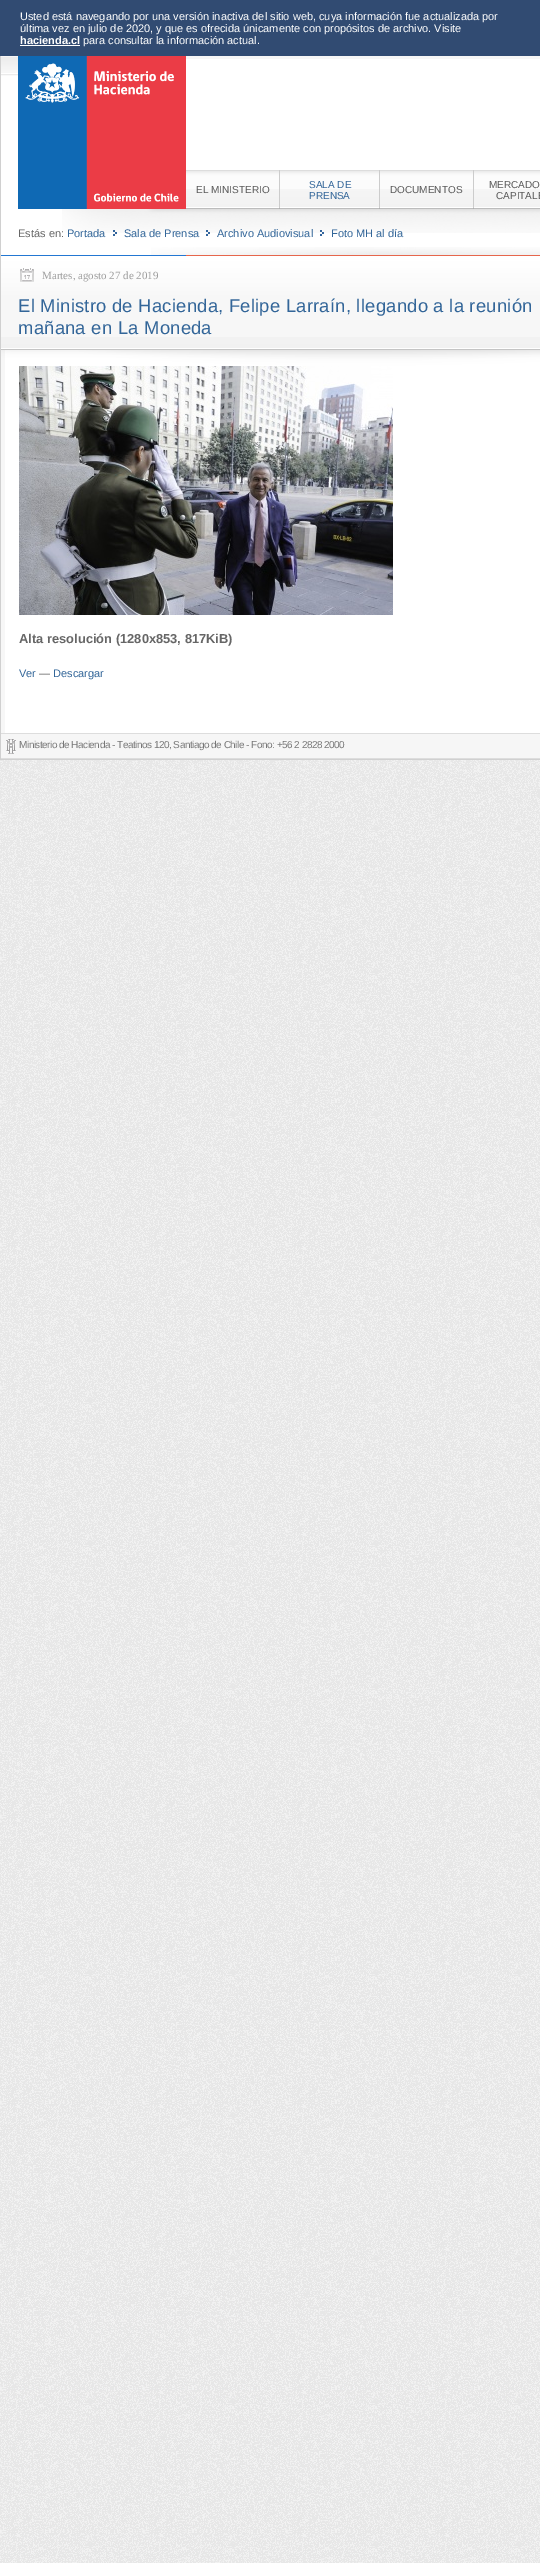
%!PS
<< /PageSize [540 2563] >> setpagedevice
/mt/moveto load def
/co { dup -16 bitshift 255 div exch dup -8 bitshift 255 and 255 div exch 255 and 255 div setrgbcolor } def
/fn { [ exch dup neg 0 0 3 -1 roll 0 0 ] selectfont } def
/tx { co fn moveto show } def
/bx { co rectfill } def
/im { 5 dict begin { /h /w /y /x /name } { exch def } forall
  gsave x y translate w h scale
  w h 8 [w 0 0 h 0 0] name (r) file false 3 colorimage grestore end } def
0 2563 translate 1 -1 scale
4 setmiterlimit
0 0 540 2563 16#FFFFFF bx
(media/1.raw) 0 760 540 1803 im
0 0 540 56 16#314B72 bx
20 45 60 1 16#FFFFFF bx
(media/2.raw) 1 56 17 20 im
0 759 540 1 16#D0D0D0 bx
0 56 1 704 16#D0D0D0 bx
186 56 354 3 16#F6F6F6 bx
(media/4.raw) 186 170 354 39 im
279 170 1 39 16#CCCCCC bx
379 170 1 39 16#CCCCCC bx
473 170 1 39 16#CCCCCC bx
(media/5.raw) 62 208 478 25 im
(media/3.raw) 18 56 168 153 im
(media/6.raw) 151 247 389 8 im
(media/7.raw) 113 230 4 6 im
(media/7.raw) 206 230 4 6 im
(media/8.raw) 320 230 4 6 im
1 366 4 367 16#F7F7F7 bx
(media/9.raw) 1 255 539 40 im
(media/10.raw) 20 268 14 14 im
1 295 539 42 16#F7F7F7 bx
(media/11.raw) 1 337 539 29 im
(media/12.raw) 19 366 374 249 im
1 734 539 24 16#F6F6F6 bx
(media/13.raw) 6 739 10 15 im
1 733 539 1 16#DDDDDD bx
1 758 539 1 16#DDDDDD bx
(Usted está navegando por una versión inactiva del sitio web, cuya información fue actualizada por) 20 20 /LiberationSans-Regular 11 16#FFFFFF tx
(última vez en julio de 2020, y que es ofrecida únicamente con propósitos de archivo. Visite) 20 32 /LiberationSans-Regular 11 16#FFFFFF tx
(hacienda.cl) 20 44 /LiberationSans-Bold 11 16#FFFFFF tx
(para consultar la información actual.) 83 44 /LiberationSans-Regular 11 16#FFFFFF tx
(EL MINISTERIO) 196 193 /LiberationSans-Regular 10 16#5A5A5A tx
(SALA DE) 309 188 /LiberationSans-Regular 10 16#336699 tx
(PRENSA) 309 199 /LiberationSans-Regular 10 16#336699 tx
(DOCUMENTOS) 390 193 /LiberationSans-Regular 10 16#5A5A5A tx
(MERCADO) 489 188 /LiberationSans-Regular 10 16#5A5A5A tx
(CAPITALE) 496 199 /LiberationSans-Regular 10 16#5A5A5A tx
(Estás en:) 18 237 /LiberationSans-Regular 11 16#666666 tx
(Portada) 67 237 /LiberationSans-Regular 11 16#336699 tx
(Sala de Prensa) 124 237 /LiberationSans-Regular 11 16#336699 tx
(Archivo Audiovisual) 217 237 /LiberationSans-Regular 11 16#336699 tx
(Foto MH al día) 331 237 /LiberationSans-Regular 11 16#336699 tx
(Martes, agosto 27 de 2019) 42 279 /LiberationSerif-Regular 11 16#9E9E9E tx
/LiberationSans-Regular 18.4 fn
16#336699 co
18 312 mt .25 0 (El Ministro de Hacienda, Felipe Larraín, llegando a la reunión) ashow
18 334 mt .25 0 (mañana en La Moneda) ashow
(Alta resolución \(1280x853, 817KiB\)) 19 643 /LiberationSans-Bold 12.9 16#666666 tx
(Ver) 19 677 /LiberationSans-Regular 11 16#336699 tx
(—) 39 677 /LiberationSans-Regular 11 16#666666 tx
(Descargar) 53 677 /LiberationSans-Regular 11 16#336699 tx
/LiberationSans-Regular 10 fn
16#777777 co
19 748 mt -.5 0 (Ministerio de Hacienda - Teatinos 120, Santiago de Chile - Fono: +56 2 2828 2000) ashow
showpage
